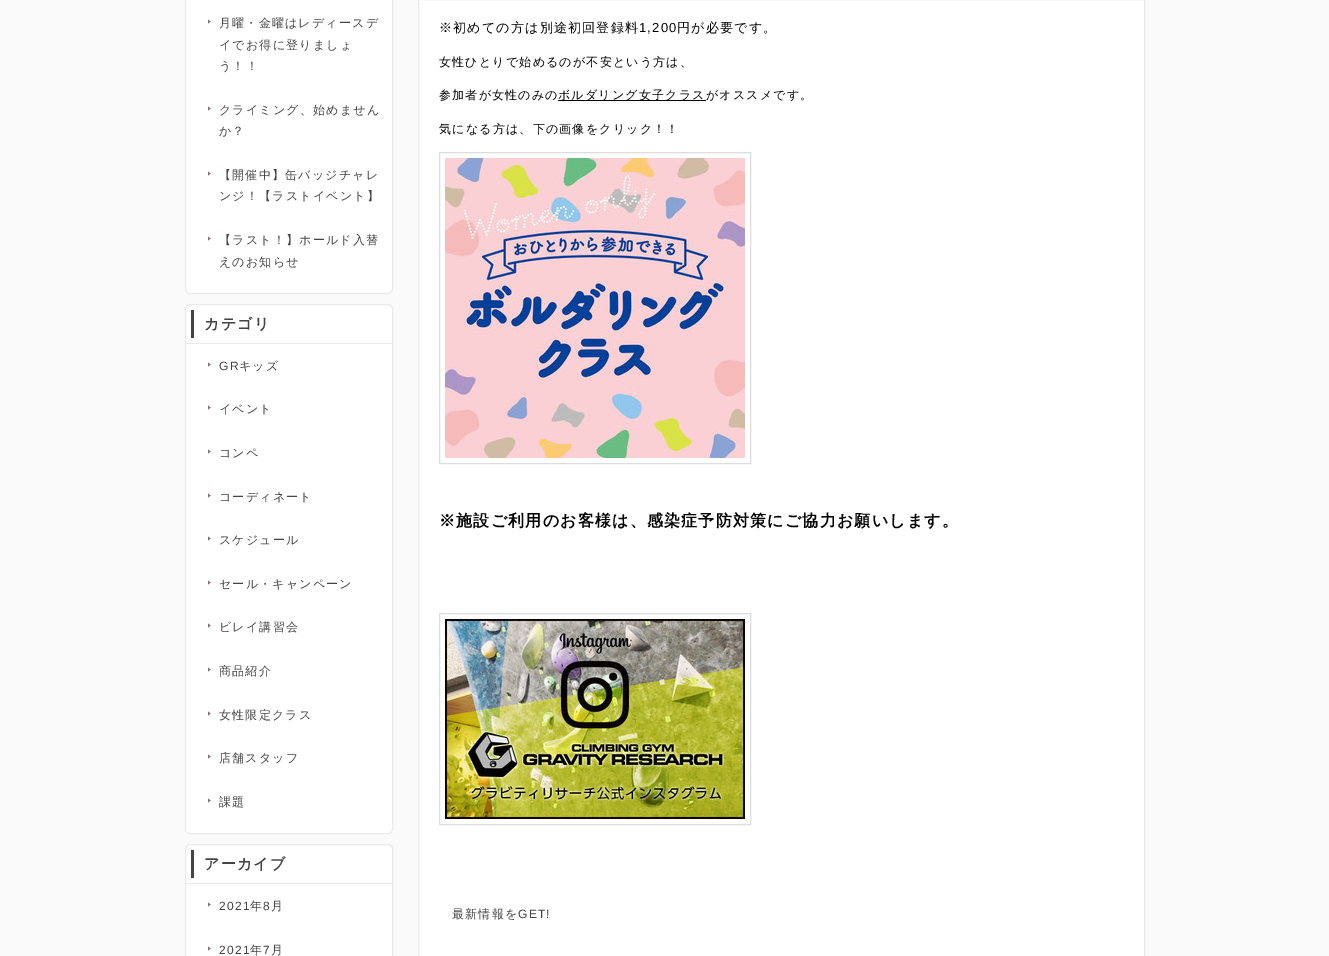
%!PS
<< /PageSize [1329 956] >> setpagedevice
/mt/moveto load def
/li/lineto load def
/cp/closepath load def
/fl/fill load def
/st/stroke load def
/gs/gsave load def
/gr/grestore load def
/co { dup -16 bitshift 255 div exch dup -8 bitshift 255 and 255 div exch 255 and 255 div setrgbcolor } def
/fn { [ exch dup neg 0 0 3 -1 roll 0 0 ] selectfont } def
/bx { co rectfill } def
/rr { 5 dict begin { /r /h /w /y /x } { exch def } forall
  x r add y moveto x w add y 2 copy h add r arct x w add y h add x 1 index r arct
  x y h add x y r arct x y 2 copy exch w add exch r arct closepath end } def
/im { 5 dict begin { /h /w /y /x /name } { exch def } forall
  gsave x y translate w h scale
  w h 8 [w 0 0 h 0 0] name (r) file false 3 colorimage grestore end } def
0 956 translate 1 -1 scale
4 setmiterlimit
0 0 1329 956 16#FAFAFA bx
16#FFFFFF co
185.5 -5.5 207 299 4.5 rr gs fl gr
16#EAEAEA co
st
(media/1.raw) 208 19 3 5 im
(media/1.raw) 208 106 3 5 im
(media/1.raw) 208 171 3 5 im
(media/1.raw) 208 236 3 5 im
16#FFFFFF co
185.5 304.5 207 529 4.5 rr gs fl gr
16#EAEAEA co
st
191 310 3 28 16#444444 bx
186 343 206 1 16#EAEAEA bx
(media/1.raw) 208 362 3 5 im
(media/1.raw) 208 405 3 5 im
(media/1.raw) 208 449 3 5 im
(media/1.raw) 208 493 3 5 im
(media/1.raw) 208 536 3 5 im
(media/1.raw) 208 580 3 5 im
(media/1.raw) 208 623 3 5 im
(media/1.raw) 208 667 3 5 im
(media/1.raw) 208 711 3 5 im
(media/1.raw) 208 754 3 5 im
(media/1.raw) 208 798 3 5 im
16#FFFFFF co
185.5 844.5 207 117 4.5 rr gs fl gr
16#EAEAEA co
st
191 850 3 28 16#444444 bx
186 883 206 1 16#EAEAEA bx
(media/1.raw) 208 902 3 5 im
(media/1.raw) 208 946 3 5 im
16#FFFFFF co
418.5 -.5 mt 1144.5 -.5 li 1144.5 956.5 li 418.5 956.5 li cp gs fl gr
16#EAEAEA co
st
558 100 148 1 16#000000 bx
16#DDDDDD co
439.5 152.5 311 311 rectstroke
(media/2.raw) 445 158 300 300 im
439.5 613.5 311 211 rectstroke
(media/3.raw) 445 619 300 200 im
/WenQuanYiZenHei-Medium 12 fn
16#444444 co
219 27 mt 1.2 0 (月曜・金曜はレディースデ) ashow
219 49 mt 1.2 0 (イでお得に登りましょ) ashow
219 70 mt 1.2 0 (う！！) ashow
219 114 mt 1.2 0 (クライミング、始めません) ashow
219 135 mt 1.2 0 (か？) ashow
219 179 mt 1.2 0 (【開催中】缶バッジチャレ) ashow
219 200 mt 1.2 0 (ンジ！【ラストイベント】) ashow
219 244 mt 1.2 0 (【ラスト！】ホールド入替) ashow
219 266 mt 1.2 0 (えのお知らせ) ashow
/WenQuanYiZenHei-Bold 15 fn
204 329 mt 1.2 0 (カテゴリ) ashow
/LiberationSans-Regular 12 fn
219 370 mt 1.2 0 (GR) ashow
/WenQuanYiZenHei-Medium 12 fn
239 370 mt 1.2 0 (キッズ) ashow
219 413 mt 1.2 0 (イベント) ashow
219 457 mt 1.2 0 (コンペ) ashow
219 501 mt 1.2 0 (コーディネート) ashow
219 544 mt 1.2 0 (スケジュール) ashow
219 588 mt 1.2 0 (セール・キャンペーン) ashow
219 631 mt 1.2 0 (ビレイ講習会) ashow
219 675 mt 1.2 0 (商品紹介) ashow
219 719 mt 1.2 0 (女性限定クラス) ashow
219 762 mt 1.2 0 (店舗スタッフ) ashow
219 806 mt 1.2 0 (課題) ashow
/WenQuanYiZenHei-Bold 15 fn
204 869 mt 1.2 0 (アーカイブ) ashow
/LiberationSans-Regular 12 fn
219 910 mt 1.2 0 (2021) ashow
/WenQuanYiZenHei-Medium 12 fn
250 910 mt 1.2 0 (年) ashow
/LiberationSans-Regular 12 fn
263 910 mt 1.2 0 (8) ashow
/WenQuanYiZenHei-Medium 12 fn
271 910 mt 1.2 0 (月) ashow
/LiberationSans-Regular 12 fn
219 954 mt 1.2 0 (2021) ashow
/WenQuanYiZenHei-Medium 12 fn
250 954 mt 1.2 0 (年) ashow
/LiberationSans-Regular 12 fn
263 954 mt 1.2 0 (7) ashow
/WenQuanYiZenHei-Medium 12 fn
271 954 mt 1.2 0 (月) ashow
/WenQuanYiZenHei-Medium 13 fn
16#000000 co
439 32 mt 1.2 0 (※初めての方は別途初回登録料) ashow
/LiberationSans-Regular 13 fn
639 32 mt 1.2 0 (1,200) ashow
/WenQuanYiZenHei-Medium 13 fn
677 32 mt 1.2 0 (円が必要です。) ashow
/WenQuanYiZenHei-Medium 12 fn
439 66 mt 1.2 0 (女性ひとりで始めるのが不安という方は、) ashow
439 99 mt 1.2 0 (参加者が女性のみの) ashow
558 99 mt 1.2 0 (ボルダリング女子クラスがオススメです。) ashow
439 133 mt 1.2 0 (気になる方は、下の画像をクリック！！) ashow
/WenQuanYiZenHei-Bold 16 fn
439 526 mt 1.2 0 (※施設ご利用のお客様は、感染症予防対策にご協力お願いします。) ashow
/WenQuanYiZenHei-Medium 12 fn
16#444444 co
452 918 mt 1.2 0 (最新情報を) ashow
/LiberationSans-Regular 12 fn
518 918 mt 1.2 0 (GET!) ashow
showpage
